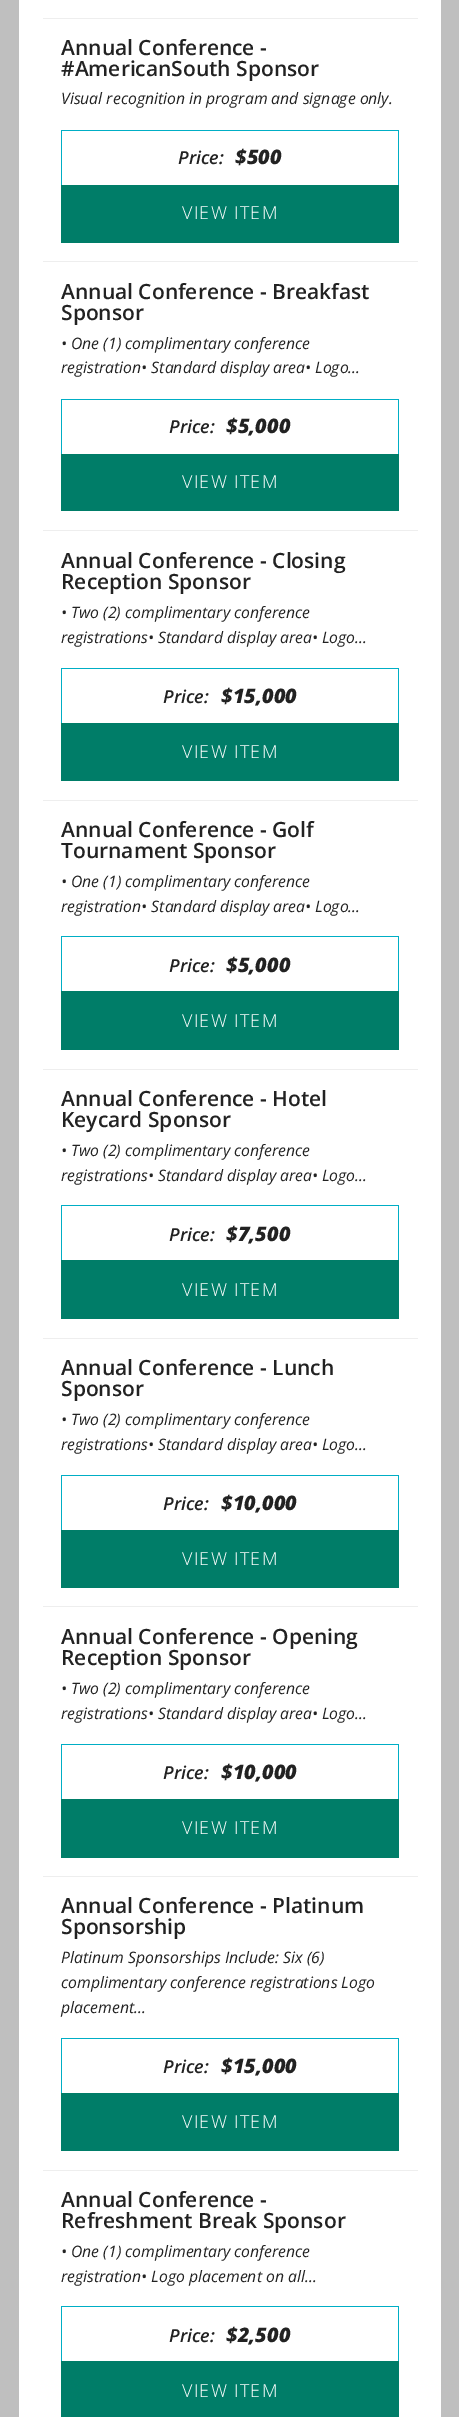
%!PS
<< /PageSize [459 2417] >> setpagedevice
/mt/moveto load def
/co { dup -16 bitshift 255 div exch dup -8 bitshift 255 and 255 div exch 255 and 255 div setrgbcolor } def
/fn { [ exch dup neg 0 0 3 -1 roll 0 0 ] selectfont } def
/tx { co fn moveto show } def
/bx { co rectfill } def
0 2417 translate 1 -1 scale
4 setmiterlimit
0 0 459 2417 16#BFBFBF bx
19 0 422 2417 16#FFFFFF bx
43 18 375 1 16#EEEEEE bx
43 261 375 1 16#EEEEEE bx
61 130 338 1 16#00AEC5 bx
398 130 1 55 16#00AEC5 bx
61 130 1 55 16#00AEC5 bx
61 185 338 58 16#007D68 bx
43 530 375 1 16#EEEEEE bx
61 399 338 1 16#00AEC5 bx
398 399 1 55 16#00AEC5 bx
61 399 1 55 16#00AEC5 bx
61 454 338 57 16#007D68 bx
43 800 375 1 16#EEEEEE bx
61 668 338 1 16#00AEC5 bx
398 668 1 55 16#00AEC5 bx
61 668 1 55 16#00AEC5 bx
61 723 338 58 16#007D68 bx
43 1069 375 1 16#EEEEEE bx
61 936 338 1 16#00AEC5 bx
398 936 1 55 16#00AEC5 bx
61 936 1 55 16#00AEC5 bx
61 991 338 59 16#007D68 bx
43 1338 375 1 16#EEEEEE bx
61 1205 338 1 16#00AEC5 bx
398 1205 1 55 16#00AEC5 bx
61 1205 1 55 16#00AEC5 bx
61 1260 338 59 16#007D68 bx
43 1606 375 1 16#EEEEEE bx
61 1475 338 1 16#00AEC5 bx
398 1475 1 55 16#00AEC5 bx
61 1475 1 55 16#00AEC5 bx
61 1530 338 58 16#007D68 bx
43 1876 375 1 16#EEEEEE bx
61 1744 338 1 16#00AEC5 bx
398 1744 1 55 16#00AEC5 bx
61 1744 1 55 16#00AEC5 bx
61 1799 338 59 16#007D68 bx
43 2170 375 1 16#EEEEEE bx
61 2038 338 1 16#00AEC5 bx
398 2038 1 55 16#00AEC5 bx
61 2038 1 55 16#00AEC5 bx
61 2093 338 58 16#007D68 bx
61 2306 338 1 16#00AEC5 bx
398 2306 1 55 16#00AEC5 bx
61 2306 1 55 16#00AEC5 bx
61 2361 338 56 16#007D68 bx
(Annual Conference -) 61 55 /OpenSans-SemiBold 21 16#222222 tx
(#AmericanSouth Sponsor) 61 76 /OpenSans-SemiBold 21 16#222222 tx
(Visual recognition in program and signage only.) 61 104 /OpenSans-Italic 15.75 16#222222 tx
(Price:) 178 164 /OpenSans-SemiBoldItalic 18 16#222222 tx
($500) 235 164 /OpenSans-ExtraBoldItalic 20 16#222222 tx
/OpenSans-Light 18 fn
16#FFFFFF co
182 219 mt 1.25 0 (VIEW ITEM) ashow
(Annual Conference - Breakfast) 61 299 /OpenSans-SemiBold 21 16#222222 tx
(Sponsor) 61 320 /OpenSans-SemiBold 21 16#222222 tx
(• One \(1\) complimentary conference) 61 349 /OpenSans-Italic 15.75 16#222222 tx
(registration• Standard display area• Logo...) 61 373 /OpenSans-Italic 15.75 16#222222 tx
(Price:) 169 433 /OpenSans-SemiBoldItalic 18 16#222222 tx
($5,000) 226 433 /OpenSans-ExtraBoldItalic 20 16#222222 tx
/OpenSans-Light 18 fn
16#FFFFFF co
182 488 mt 1.25 0 (VIEW ITEM) ashow
(Annual Conference - Closing) 61 568 /OpenSans-SemiBold 21 16#222222 tx
(Reception Sponsor) 61 589 /OpenSans-SemiBold 21 16#222222 tx
(• Two \(2\) complimentary conference) 61 618 /OpenSans-Italic 15.75 16#222222 tx
(registrations• Standard display area• Logo...) 61 643 /OpenSans-Italic 15.75 16#222222 tx
(Price:) 163 703 /OpenSans-SemiBoldItalic 18 16#222222 tx
($15,000) 221 703 /OpenSans-ExtraBoldItalic 20 16#222222 tx
/OpenSans-Light 18 fn
16#FFFFFF co
182 758 mt 1.25 0 (VIEW ITEM) ashow
(Annual Conference - Golf) 61 837 /OpenSans-SemiBold 21 16#222222 tx
(Tournament Sponsor) 61 858 /OpenSans-SemiBold 21 16#222222 tx
(• One \(1\) complimentary conference) 61 887 /OpenSans-Italic 15.75 16#222222 tx
(registration• Standard display area• Logo...) 61 912 /OpenSans-Italic 15.75 16#222222 tx
(Price:) 169 972 /OpenSans-SemiBoldItalic 18 16#222222 tx
($5,000) 226 972 /OpenSans-ExtraBoldItalic 20 16#222222 tx
/OpenSans-Light 18 fn
16#FFFFFF co
182 1027 mt 1.25 0 (VIEW ITEM) ashow
(Annual Conference - Hotel) 61 1106 /OpenSans-SemiBold 21 16#222222 tx
(Keycard Sponsor) 61 1127 /OpenSans-SemiBold 21 16#222222 tx
(• Two \(2\) complimentary conference) 61 1156 /OpenSans-Italic 15.75 16#222222 tx
(registrations• Standard display area• Logo...) 61 1181 /OpenSans-Italic 15.75 16#222222 tx
(Price:) 169 1241 /OpenSans-SemiBoldItalic 18 16#222222 tx
($7,500) 226 1241 /OpenSans-ExtraBoldItalic 20 16#222222 tx
/OpenSans-Light 18 fn
16#FFFFFF co
182 1296 mt 1.25 0 (VIEW ITEM) ashow
(Annual Conference - Lunch) 61 1375 /OpenSans-SemiBold 21 16#222222 tx
(Sponsor) 61 1396 /OpenSans-SemiBold 21 16#222222 tx
(• Two \(2\) complimentary conference) 61 1425 /OpenSans-Italic 15.75 16#222222 tx
(registrations• Standard display area• Logo...) 61 1450 /OpenSans-Italic 15.75 16#222222 tx
(Price:) 163 1510 /OpenSans-SemiBoldItalic 18 16#222222 tx
($10,000) 221 1510 /OpenSans-ExtraBoldItalic 20 16#222222 tx
/OpenSans-Light 18 fn
16#FFFFFF co
182 1565 mt 1.25 0 (VIEW ITEM) ashow
(Annual Conference - Opening) 61 1644 /OpenSans-SemiBold 21 16#222222 tx
(Reception Sponsor) 61 1665 /OpenSans-SemiBold 21 16#222222 tx
(• Two \(2\) complimentary conference) 61 1694 /OpenSans-Italic 15.75 16#222222 tx
(registrations• Standard display area• Logo...) 61 1719 /OpenSans-Italic 15.75 16#222222 tx
(Price:) 163 1779 /OpenSans-SemiBoldItalic 18 16#222222 tx
($10,000) 221 1779 /OpenSans-ExtraBoldItalic 20 16#222222 tx
/OpenSans-Light 18 fn
16#FFFFFF co
182 1834 mt 1.25 0 (VIEW ITEM) ashow
(Annual Conference - Platinum) 61 1913 /OpenSans-SemiBold 21 16#222222 tx
(Sponsorship) 61 1934 /OpenSans-SemiBold 21 16#222222 tx
(Platinum Sponsorships Include: Six \(6\)) 61 1963 /OpenSans-Italic 15.75 16#222222 tx
(complimentary conference registrations Logo) 61 1988 /OpenSans-Italic 15.75 16#222222 tx
(placement...) 61 2013 /OpenSans-Italic 15.75 16#222222 tx
(Price:) 163 2073 /OpenSans-SemiBoldItalic 18 16#222222 tx
($15,000) 221 2073 /OpenSans-ExtraBoldItalic 20 16#222222 tx
/OpenSans-Light 18 fn
16#FFFFFF co
182 2128 mt 1.25 0 (VIEW ITEM) ashow
(Annual Conference -) 61 2207 /OpenSans-SemiBold 21 16#222222 tx
(Refreshment Break Sponsor) 61 2228 /OpenSans-SemiBold 21 16#222222 tx
(• One \(1\) complimentary conference) 61 2257 /OpenSans-Italic 15.75 16#222222 tx
(registration• Logo placement on all...) 61 2282 /OpenSans-Italic 15.75 16#222222 tx
(Price:) 169 2342 /OpenSans-SemiBoldItalic 18 16#222222 tx
($2,500) 226 2342 /OpenSans-ExtraBoldItalic 20 16#222222 tx
/OpenSans-Light 18 fn
16#FFFFFF co
182 2397 mt 1.25 0 (VIEW ITEM) ashow
showpage
